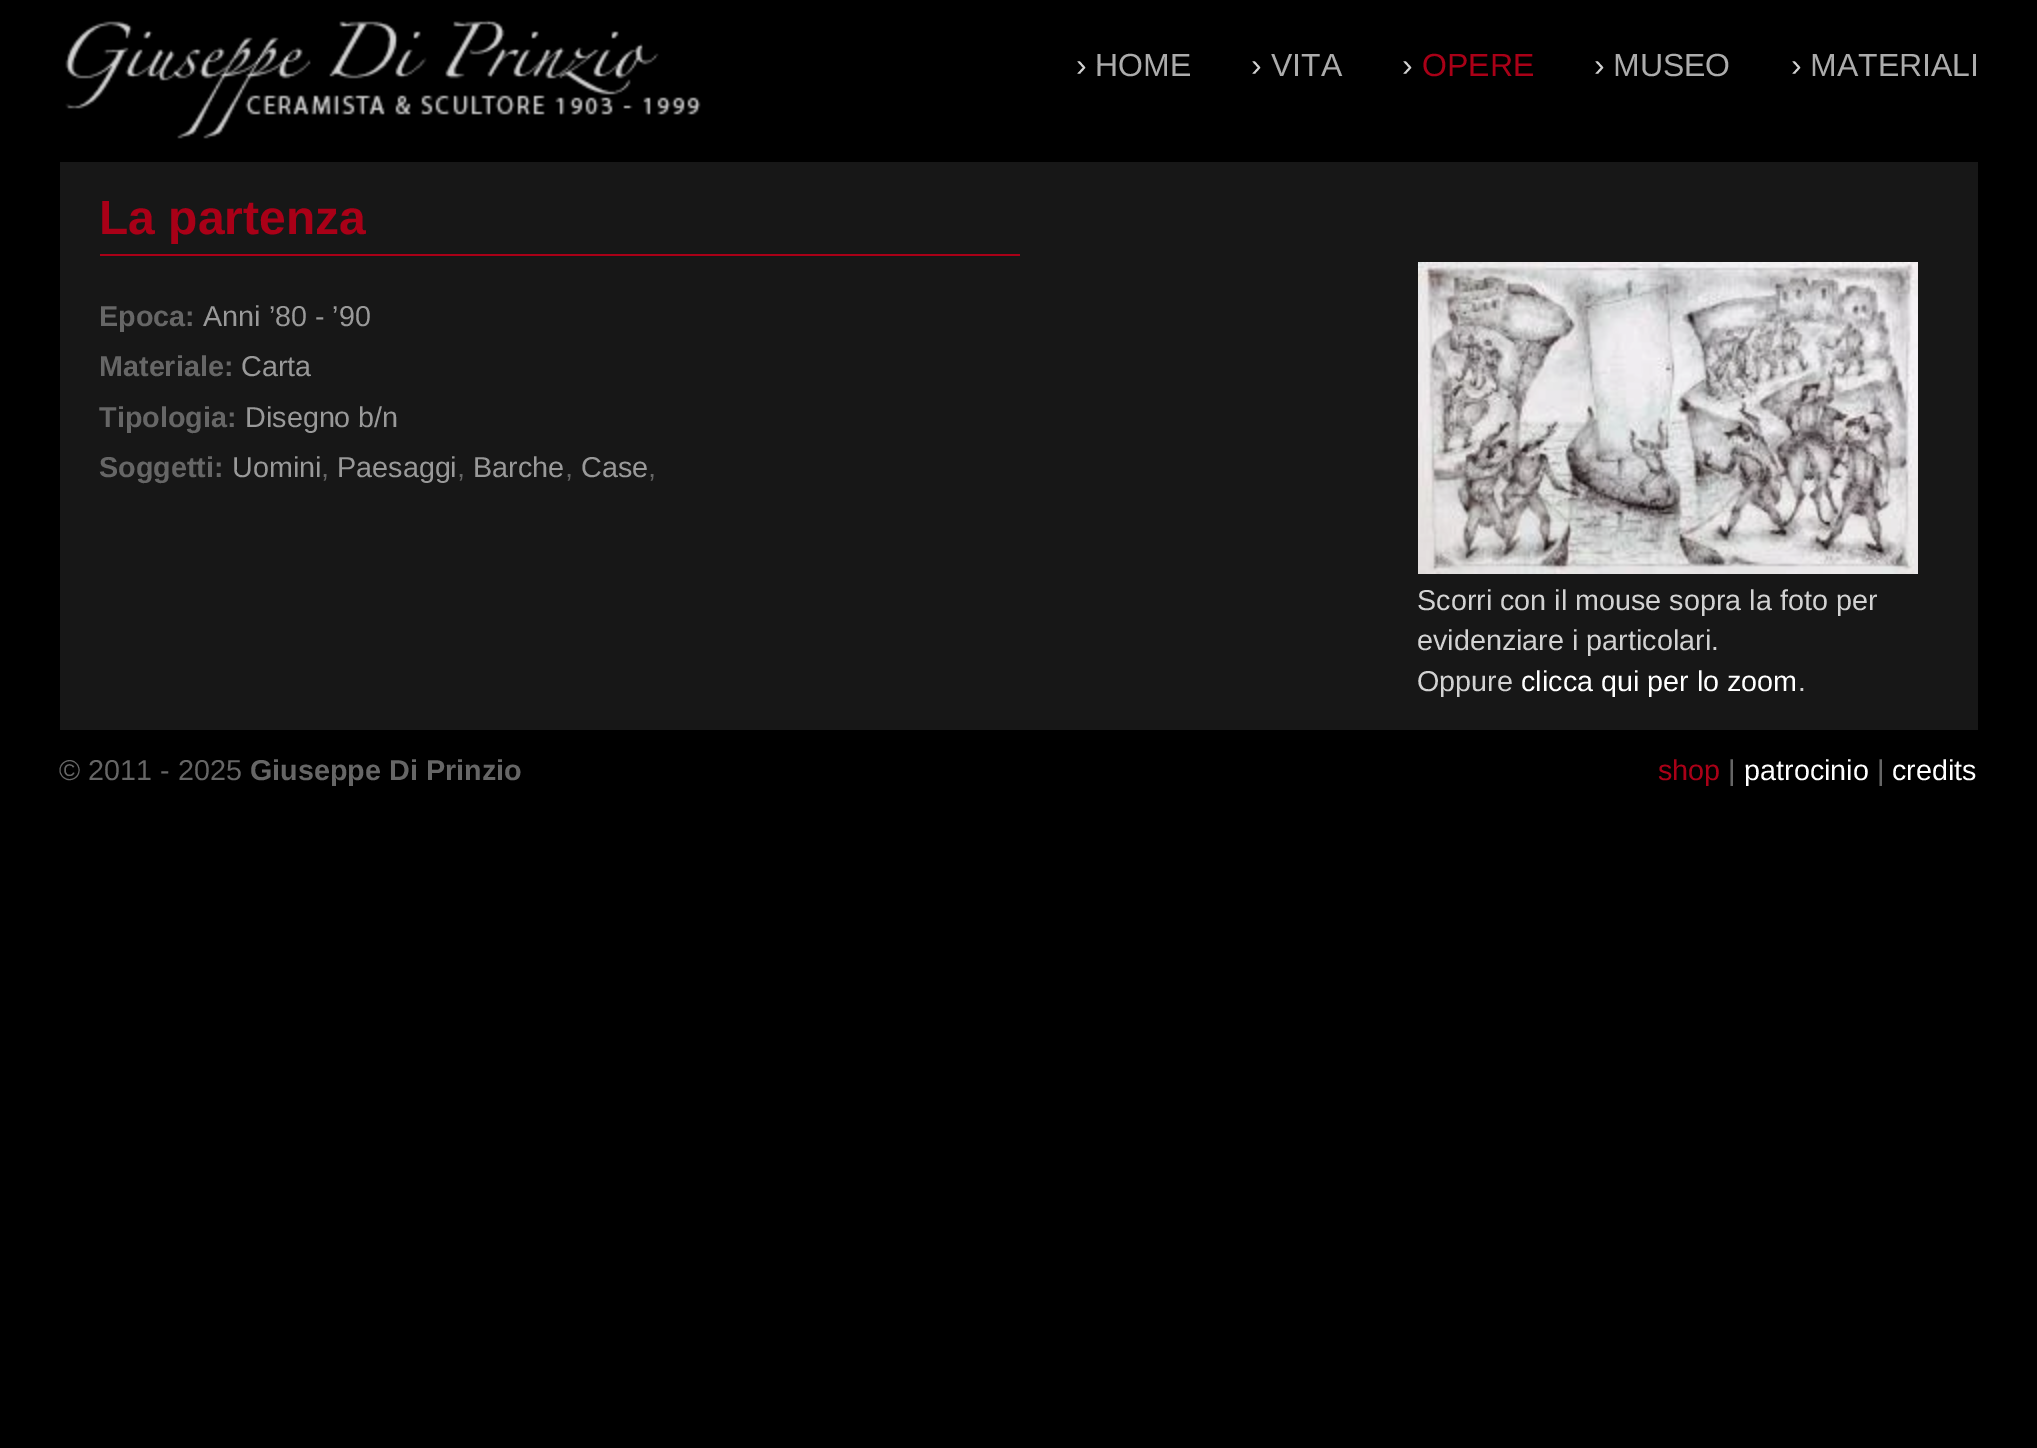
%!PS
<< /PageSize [2037 1448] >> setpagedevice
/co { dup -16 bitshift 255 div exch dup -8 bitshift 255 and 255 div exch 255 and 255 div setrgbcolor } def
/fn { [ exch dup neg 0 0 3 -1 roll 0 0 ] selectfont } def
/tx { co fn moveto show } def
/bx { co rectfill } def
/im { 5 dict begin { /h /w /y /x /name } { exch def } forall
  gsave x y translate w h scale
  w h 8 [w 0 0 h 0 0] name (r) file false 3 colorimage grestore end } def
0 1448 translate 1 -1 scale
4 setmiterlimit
0 0 2037 1448 16#000000 bx
(media/1.raw) 65 20 636 119 im
60 162 1918 568 16#171717 bx
100 254 920 2 16#A90017 bx
(media/2.raw) 1418 262 500 312 im
(›) 1076 76 /LiberationSans-Regular 32 16#D2D2D2 tx
(HOME) 1095 76 /LiberationSans-Regular 32 16#ACACAC tx
(›) 1251 76 /LiberationSans-Regular 32 16#D2D2D2 tx
(VITA) 1271 76 /LiberationSans-Regular 32 16#ACACAC tx
(›) 1402 76 /LiberationSans-Regular 32 16#D2D2D2 tx
(OPERE) 1422 76 /LiberationSans-Regular 32 16#A90017 tx
(›) 1594 76 /LiberationSans-Regular 32 16#D2D2D2 tx
(MUSEO) 1613 76 /LiberationSans-Regular 32 16#ACACAC tx
(›) 1791 76 /LiberationSans-Regular 32 16#D2D2D2 tx
(MATERIALI) 1810 76 /LiberationSans-Regular 32 16#ACACAC tx
(La partenza) 99 234 /LiberationSans-Bold 48 16#A90017 tx
(Epoca:) 99 326 /LiberationSans-Bold 28.75 16#666666 tx
(Anni ’80 - ’90) 203 326 /LiberationSans-Regular 28.75 16#999999 tx
(Materiale:) 99 376 /LiberationSans-Bold 28.75 16#666666 tx
(Carta) 241 376 /LiberationSans-Regular 28.75 16#999999 tx
(Tipologia:) 99 427 /LiberationSans-Bold 28.75 16#666666 tx
(Disegno b/n) 245 427 /LiberationSans-Regular 28.75 16#999999 tx
(Soggetti:) 99 477 /LiberationSans-Bold 28.75 16#666666 tx
(Uomini) 232 477 /LiberationSans-Regular 28.75 16#999999 tx
(,) 321 477 /LiberationSans-Regular 28.75 16#666666 tx
(Paesaggi) 337 477 /LiberationSans-Regular 28.75 16#999999 tx
(,) 457 477 /LiberationSans-Regular 28.75 16#666666 tx
(Barche) 473 477 /LiberationSans-Regular 28.75 16#999999 tx
(,) 565 477 /LiberationSans-Regular 28.75 16#666666 tx
(Case) 581 477 /LiberationSans-Regular 28.75 16#999999 tx
(,) 648 477 /LiberationSans-Regular 28.75 16#666666 tx
(Scorri con il mouse sopra la foto per) 1417 610 /LiberationSans-Regular 28.75 16#D2D2D2 tx
(evidenziare i particolari.) 1417 650 /LiberationSans-Regular 28.75 16#D2D2D2 tx
(Oppure) 1417 691 /LiberationSans-Regular 28.75 16#D2D2D2 tx
(clicca qui per lo zoom) 1521 691 /LiberationSans-Regular 28.75 16#FFFFFF tx
(.) 1798 691 /LiberationSans-Regular 28.75 16#D2D2D2 tx
(© 2011 - 2025) 59 780 /LiberationSans-Regular 28.75 16#666666 tx
(Giuseppe Di Prinzio) 250 780 /LiberationSans-Bold 28.75 16#666666 tx
(shop) 1658 780 /LiberationSans-Regular 28.75 16#A90017 tx
(|) 1728 780 /LiberationSans-Regular 28.75 16#666666 tx
(patrocinio) 1744 780 /LiberationSans-Regular 28.75 16#FFFFFF tx
(|) 1877 780 /LiberationSans-Regular 28.75 16#666666 tx
(credits) 1892 780 /LiberationSans-Regular 28.75 16#FFFFFF tx
showpage
